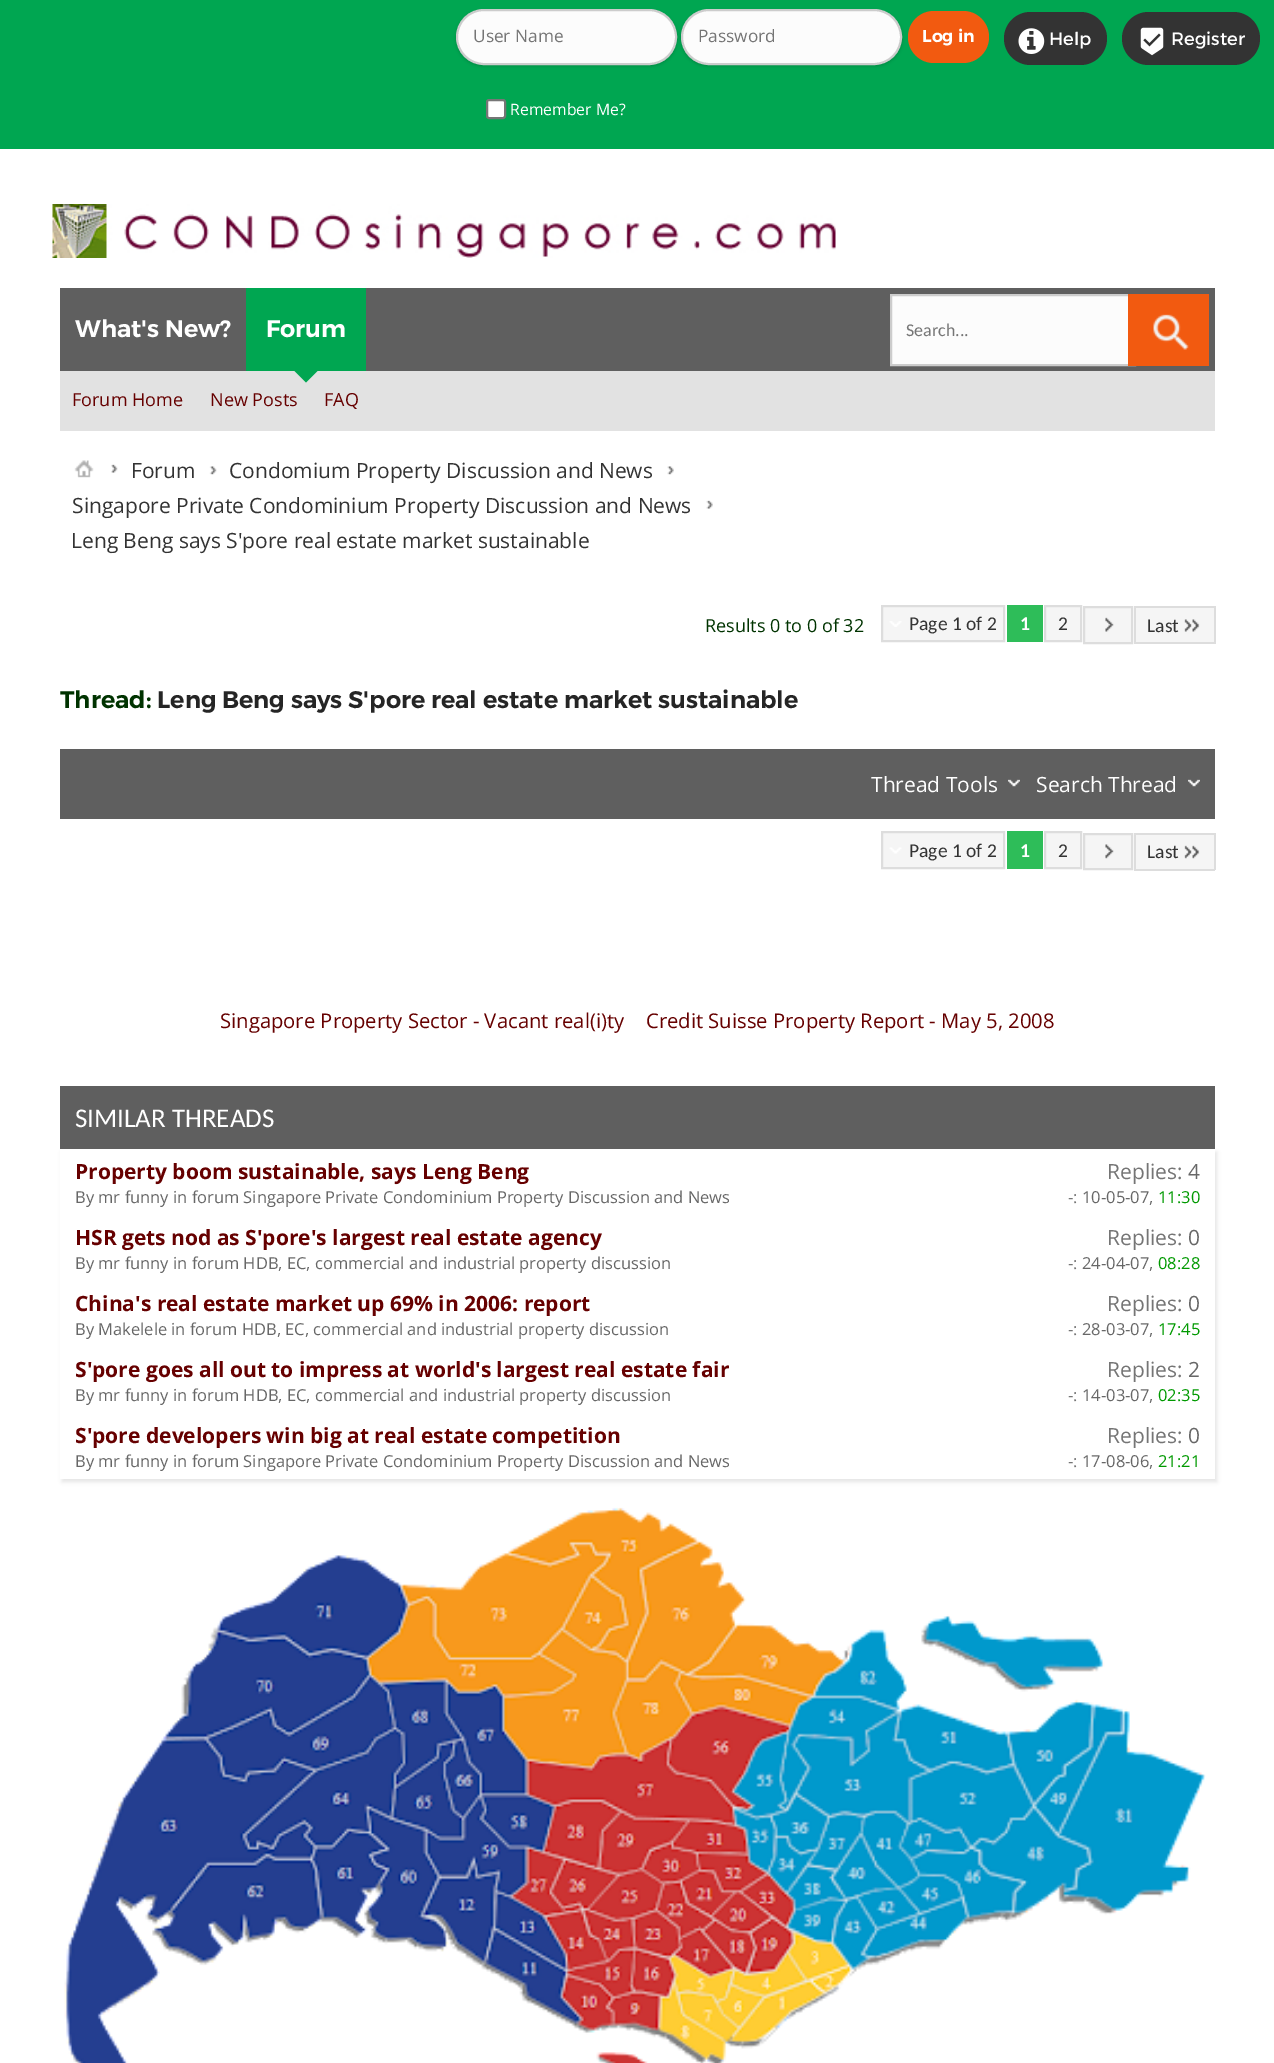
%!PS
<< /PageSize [1274 2063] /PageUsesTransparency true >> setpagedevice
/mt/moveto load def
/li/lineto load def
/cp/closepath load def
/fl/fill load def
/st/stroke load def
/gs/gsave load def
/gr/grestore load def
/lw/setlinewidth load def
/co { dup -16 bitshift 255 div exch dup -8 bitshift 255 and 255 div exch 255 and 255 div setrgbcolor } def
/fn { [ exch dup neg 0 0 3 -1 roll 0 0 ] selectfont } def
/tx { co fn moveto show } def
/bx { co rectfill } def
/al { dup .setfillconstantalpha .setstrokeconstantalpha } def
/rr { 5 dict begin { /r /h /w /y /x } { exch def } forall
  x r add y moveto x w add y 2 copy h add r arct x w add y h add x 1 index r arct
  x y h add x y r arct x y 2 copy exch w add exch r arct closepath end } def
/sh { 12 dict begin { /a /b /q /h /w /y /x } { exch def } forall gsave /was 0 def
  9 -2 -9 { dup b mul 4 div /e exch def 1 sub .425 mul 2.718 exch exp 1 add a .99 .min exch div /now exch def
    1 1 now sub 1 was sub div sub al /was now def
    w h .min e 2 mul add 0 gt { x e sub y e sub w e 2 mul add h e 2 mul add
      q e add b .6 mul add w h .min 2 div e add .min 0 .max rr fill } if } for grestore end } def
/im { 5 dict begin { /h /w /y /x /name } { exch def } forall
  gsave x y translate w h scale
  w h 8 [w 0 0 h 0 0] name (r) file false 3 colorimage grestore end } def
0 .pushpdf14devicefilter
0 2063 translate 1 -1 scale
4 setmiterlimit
0 0 1274 2063 16#FFFFFF bx
0 0 1274 149 16#00A651 bx
16#000000 co
456 11 221 55 27.5 1.5 .16 sh
16#FCFCFC co
457 10 219 54 27 rr gs fl gr
16#CCCCCC co
2 lw
st
16#000000 co
681 11 221 55 27.5 1.5 .16 sh
16#FCFCFC co
682 10 219 54 27 rr gs fl gr
16#CCCCCC co
st
16#F25A10 co
908 11 81 52 26 rr fl
16#FFFFFF co
487 100 18 18 2 rr gs fl gr
16#767676 co
st
16#333333 co
1004 12 103 53 26.5 rr fl
(media/1.raw) 1018 28 27 26 im
1122 12 138 53 26.5 rr fl
(media/2.raw) 1140 27 24 29 im
(media/3.raw) 52 204 784 54 im
60 371 1155 60 16#E2E2E2 bx
60 288 1155 83 16#5F5F5F bx
246 288 120 83 16#00A651 bx
294 370.5 mt 318 370.5 li 306 382.5 li cp fl
892 296 236 68 16#FCFCFC bx
16#CCCCCC co
891 295 244 70 rectstroke
1128 294 81 72 16#F25A10 bx
(media/4.raw) 1153 314 36 36 im
(media/5.raw) 111 464 7 9 im
(media/6.raw) 74 460 20 18 im
(media/7.raw) 209 466 8 9 im
(media/8.raw) 667 466 7 9 im
(media/9.raw) 706 500 7 9 im
883 607 120 33 16#F5F5F5 bx
(media/10.raw) 889 621 13 6 im
16#DDDDDD co
882 606 122 35 rectstroke
1007 605 36 37 16#2EBD59 bx
16#F5F5F5 co
1045 606 mt 1081 606 li 1081 641 li 1045 641 li cp gs fl gr
16#DDDDDD co
st
16#F5F5F5 co
1084 607 mt 1132 607 li 1132 643 li 1084 643 li cp gs fl gr
16#DDDDDD co
st
(media/11.raw) 1105 617 9 15 im
1136 608 78 34 16#F5F5F5 bx
1134 606 81 2 16#DDDDDD bx
1134 642 45 2 16#DDDDDD bx
1134 606 2 38 16#DDDDDD bx
1214 606 2 38 16#DDDDDD bx
1179 642 36 2 16#DDDDDD bx
(media/12.raw) 1184 619 16 13 im
60 749 1155 70 16#5F5F5F bx
(media/13.raw) 1008 779 12 8 im
(media/14.raw) 1188 779 12 8 im
883 833 120 34 16#F5F5F5 bx
(media/15.raw) 889 847 13 7 im
16#DDDDDD co
882 832 122 36 rectstroke
1007 831 36 38 16#2EBD59 bx
16#F5F5F5 co
1045 832 mt 1081 832 li 1081 868 li 1045 868 li cp gs fl gr
16#DDDDDD co
st
16#F5F5F5 co
1084 834 mt 1132 834 li 1132 869 li 1084 869 li cp gs fl gr
16#DDDDDD co
st
(media/16.raw) 1105 844 9 15 im
1136 835 78 34 16#F5F5F5 bx
1134 833 81 2 16#DDDDDD bx
1134 869 45 2 16#DDDDDD bx
1134 833 2 37 16#DDDDDD bx
1214 833 2 37 16#DDDDDD bx
1179 869 36 2 16#DDDDDD bx
(media/17.raw) 1184 845 16 14 im
60 1086 1155 63 16#5F5F5F bx
gs
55 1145 mt 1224 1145 li 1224 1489 li 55 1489 li cp 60 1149 mt 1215 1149 li 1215 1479 li 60 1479 li cp eoclip newpath
16#000000 co
62 1152 1155 330 0 2 .1 sh
gr
(media/18.raw) 64 1507 1142 556 im
(User Name) 473 42 /OpenSans-Regular 17.25 16#757575 tx
(Password) 698 42 /OpenSans-Regular 17.25 16#757575 tx
(Log in) 922 42 /Montserrat-SemiBold 17.25 16#FFFFFF tx
(Remember Me?) 510 115 /OpenSans-Regular 15.75 16#FFFFFF tx
(Help) 1049 45 /Montserrat-Regular 18 16#FFFFFF tx
(Register) 1171 45 /Montserrat-Regular 18 16#FFFFFF tx
(What's New?) 75 337 /Montserrat-SemiBold 24 16#FFFFFF tx
(Forum) 266 337 /Montserrat-SemiBold 24 16#FFFFFF tx
(Forum Home) 72 406 /OpenSans-Regular 18 16#660000 tx
(New Posts) 210 406 /OpenSans-Regular 18 16#660000 tx
(FAQ) 324 406 /OpenSans-Regular 18 16#660000 tx
(Search...) 906 336 /Carlito-Regular 18 16#757575 tx
(Forum) 131 478 /OpenSans-Regular 21 16#333333 tx
(Condomium Property Discussion and News) 229 478 /OpenSans-Regular 21 16#333333 tx
(Singapore Private Condominium Property Discussion and News) 72 513 /OpenSans-Regular 21 16#333333 tx
(Leng Beng says S'pore real estate market sustainable) 71 548 /OpenSans-Regular 21 16#333333 tx
(Results 0 to 0 of 32) 705 632 /OpenSans-Regular 18 16#003300 tx
(Page 1 of 2) 909 630 /Carlito-Regular 19.5 16#333333 tx
(1) 1020 630 /Carlito-Bold 19.5 16#FFFFFF tx
(2) 1058 630 /Carlito-Regular 19.5 16#333333 tx
(Last) 1147 632 /Carlito-Regular 19.5 16#333333 tx
(Thread:) 60 708 /Montserrat-SemiBold 24 16#003300 tx
(Leng Beng says S'pore real estate market sustainable) 157 708 /Montserrat-SemiBold 24 16#252525 tx
(Thread Tools) 871 792 /OpenSans-Regular 21 16#FFFFFF tx
(Search Thread) 1036 792 /OpenSans-Regular 21 16#FFFFFF tx
(Page 1 of 2) 909 857 /Carlito-Regular 19.5 16#333333 tx
(1) 1020 857 /Carlito-Bold 19.5 16#FFFFFF tx
(2) 1058 857 /Carlito-Regular 19.5 16#333333 tx
(Last) 1147 858 /Carlito-Regular 19.5 16#333333 tx
(Singapore Property Sector - Vacant real\(i\)ty) 220 1028 /OpenSans-Regular 20.25 16#660000 tx
(Credit Suisse Property Report - May 5, 2008) 646 1028 /OpenSans-Regular 20.25 16#660000 tx
(SIMILAR THREADS) 75 1127 /Carlito-Regular 27 16#FFFFFF tx
(Property boom sustainable, says Leng Beng) 75 1179 /OpenSans-Bold 21 16#660000 tx
(By mr funny in forum Singapore Private Condominium Property Discussion and News) 75 1203 /OpenSans-Regular 16.5 16#676767 tx
(Replies:) 1107 1179 /OpenSans-Regular 21 16#757575 tx
(4) 1188 1179 /OpenSans-Regular 21 16#676767 tx
(-:) 1068 1203 /OpenSans-Regular 16.5 16#757575 tx
(10-05-07,) 1082 1203 /OpenSans-Regular 16.5 16#676767 tx
(11:30) 1158 1203 /OpenSans-Regular 16.5 16#009900 tx
(HSR gets nod as S'pore's largest real estate agency) 75 1245 /OpenSans-Bold 21 16#660000 tx
(By mr funny in forum HDB, EC, commercial and industrial property discussion) 75 1269 /OpenSans-Regular 16.5 16#676767 tx
(Replies:) 1107 1245 /OpenSans-Regular 21 16#757575 tx
(0) 1188 1245 /OpenSans-Regular 21 16#676767 tx
(-:) 1068 1269 /OpenSans-Regular 16.5 16#757575 tx
(24-04-07,) 1082 1269 /OpenSans-Regular 16.5 16#676767 tx
(08:28) 1158 1269 /OpenSans-Regular 16.5 16#009900 tx
(China's real estate market up 69% in 2006: report) 75 1311 /OpenSans-Bold 21 16#660000 tx
(By Makelele in forum HDB, EC, commercial and industrial property discussion) 75 1335 /OpenSans-Regular 16.5 16#676767 tx
(Replies:) 1107 1311 /OpenSans-Regular 21 16#757575 tx
(0) 1188 1311 /OpenSans-Regular 21 16#676767 tx
(-:) 1068 1335 /OpenSans-Regular 16.5 16#757575 tx
(28-03-07,) 1082 1335 /OpenSans-Regular 16.5 16#676767 tx
(17:45) 1158 1335 /OpenSans-Regular 16.5 16#009900 tx
(S'pore goes all out to impress at world's largest real estate fair) 75 1377 /OpenSans-Bold 21 16#660000 tx
(By mr funny in forum HDB, EC, commercial and industrial property discussion) 75 1401 /OpenSans-Regular 16.5 16#676767 tx
(Replies:) 1107 1377 /OpenSans-Regular 21 16#757575 tx
(2) 1188 1377 /OpenSans-Regular 21 16#676767 tx
(-:) 1068 1401 /OpenSans-Regular 16.5 16#757575 tx
(14-03-07,) 1082 1401 /OpenSans-Regular 16.5 16#676767 tx
(02:35) 1158 1401 /OpenSans-Regular 16.5 16#009900 tx
(S'pore developers win big at real estate competition) 75 1443 /OpenSans-Bold 21 16#660000 tx
(By mr funny in forum Singapore Private Condominium Property Discussion and News) 75 1467 /OpenSans-Regular 16.5 16#676767 tx
(Replies:) 1107 1443 /OpenSans-Regular 21 16#757575 tx
(0) 1188 1443 /OpenSans-Regular 21 16#676767 tx
(-:) 1068 1467 /OpenSans-Regular 16.5 16#757575 tx
(17-08-06,) 1082 1467 /OpenSans-Regular 16.5 16#676767 tx
(21:21) 1158 1467 /OpenSans-Regular 16.5 16#009900 tx
.poppdf14devicefilter showpage
